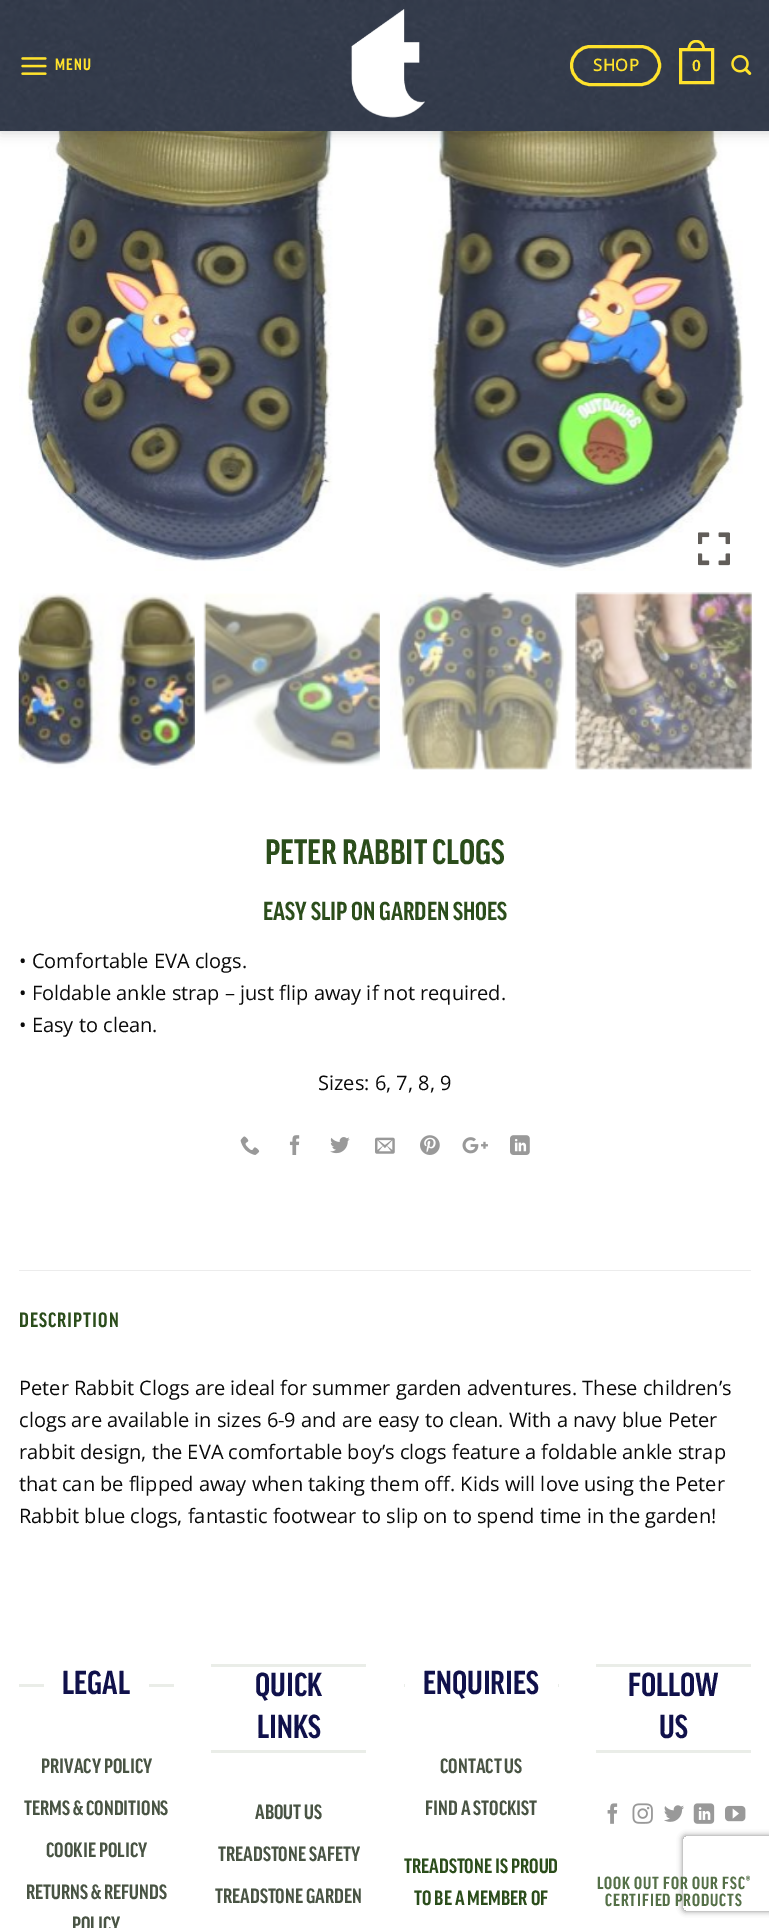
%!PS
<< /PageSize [769 1928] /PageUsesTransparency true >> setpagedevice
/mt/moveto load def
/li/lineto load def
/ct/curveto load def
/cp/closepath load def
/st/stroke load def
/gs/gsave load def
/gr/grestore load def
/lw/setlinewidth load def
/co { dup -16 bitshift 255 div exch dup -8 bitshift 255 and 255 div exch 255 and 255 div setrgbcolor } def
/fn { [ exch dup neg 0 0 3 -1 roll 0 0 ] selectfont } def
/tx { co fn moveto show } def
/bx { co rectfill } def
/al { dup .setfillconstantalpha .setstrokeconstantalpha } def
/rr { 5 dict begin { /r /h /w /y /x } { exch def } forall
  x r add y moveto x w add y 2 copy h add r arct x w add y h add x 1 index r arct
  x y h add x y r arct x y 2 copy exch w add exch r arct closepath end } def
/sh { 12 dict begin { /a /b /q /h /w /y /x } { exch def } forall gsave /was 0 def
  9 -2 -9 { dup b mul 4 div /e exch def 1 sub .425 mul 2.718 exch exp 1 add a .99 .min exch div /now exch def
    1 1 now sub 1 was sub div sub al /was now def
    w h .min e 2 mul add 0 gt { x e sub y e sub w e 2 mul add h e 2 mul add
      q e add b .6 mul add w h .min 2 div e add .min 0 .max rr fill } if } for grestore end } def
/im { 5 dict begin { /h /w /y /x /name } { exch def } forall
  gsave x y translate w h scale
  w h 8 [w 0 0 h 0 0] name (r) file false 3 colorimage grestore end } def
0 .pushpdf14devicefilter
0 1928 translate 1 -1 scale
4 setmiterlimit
0 0 769 1928 16#FFFFFF bx
(media/5.raw) 19 131 725 440 im
16#000000 co
1 1 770 132 0 6 .15 sh
(media/1.raw) 0 0 769 131 im
(media/2.raw) 21 57 26 18 im
(media/3.raw) 351 9 74 109 im
16#FFE22C co
3 lw
571.5 46.5 88 38 19 rr st
680.5 49.5 32 33 rectstroke
696 40 mt 702 40 705 44.5 705 50 ct 687.5 50 li 687.5 44.5 690.5 40 696 40 ct cp 696 42.5 mt 700.5 42.5 702.5 46 702.5 50 ct 690 50 li 690 46 692 42.5 696 42.5 ct cp eofill
(media/4.raw) 731 55 21 20 im
(media/6.raw) 698 532 32 34 im
(media/7.raw) 18 593 177 176 im
(media/8.raw) 203 593 177 173 im
(media/9.raw) 390 592 177 178 im
(media/10.raw) 575 592 177 178 im
(media/11.raw) 240 1136 20 19 im
(media/12.raw) 289 1135 11 20 im
(media/13.raw) 330 1137 20 17 im
(media/14.raw) 375 1137 20 17 im
(media/15.raw) 420 1135 20 20 im
(media/16.raw) 462 1137 26 17 im
(media/17.raw) 510 1135 20 20 im
19 1270 732 1 16#ECECEC bx
19 1684 25 3 16#EAEDE8 bx
149 1684 25 3 16#EAEDE8 bx
211 1664 155 3 16#EAEDE8 bx
211 1750 155 3 16#EAEDE8 bx
404 1684 1 3 16#EAEDE8 bx
558 1684 1 3 16#EAEDE8 bx
596 1664 155 3 16#EAEDE8 bx
596 1750 155 3 16#EAEDE8 bx
(media/18.raw) 607 1803 11 21 im
(media/19.raw) 632 1803 21 21 im
(media/20.raw) 664 1805 20 17 im
(media/21.raw) 693 1803 22 21 im
(media/22.raw) 725 1805 21 17 im
gs
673 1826 mt 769 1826 li 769 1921 li 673 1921 li cp 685.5 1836 mt 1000.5 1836 li 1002 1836 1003 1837 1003 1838.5 ct 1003 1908.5 li 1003 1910 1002 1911 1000.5 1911 ct 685.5 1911 li 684 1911 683 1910 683 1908.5 ct 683 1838.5 li 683 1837 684 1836 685.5 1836 ct cp eoclip newpath
16#808080 co
683 1836 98 75 2.5 3 1 sh
gr
/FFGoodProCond-Bold 16 fn
16#FFE22C co
55 70 mt 1 0 (MENU) ashow
/OpenSans-Bold 16.5 fn
593 71 mt .5 0 (SHOP) ashow
(0) 692 71 /LiberationSans-Bold 16 16#FFE22C tx
(PETER RABBIT CLOGS) 265 864 /FFGoodProCond-Bold 34 16#2B4D1B tx
(EASY SLIP ON GARDEN SHOES) 263 920 /FFGoodProCond-Bold 25 16#2B4D1B tx
(• Comfortable EVA clogs.) 19 968 /OpenSans-Regular 20 16#0A0A0A tx
(• Foldable ankle strap – just flip away if not required.) 19 1000 /OpenSans-Regular 20 16#0A0A0A tx
(• Easy to clean.) 19 1032 /OpenSans-Regular 20 16#0A0A0A tx
(Sizes: 6, 7, 8, 9) 318 1090 /OpenSans-Regular 20 16#0A0A0A tx
/FFGoodProCond-Bold 20 fn
16#2B4D1B co
19 1327 mt 1 0 (DESCRIPTION) ashow
(Peter Rabbit Clogs are ideal for summer garden adventures. These children’s) 19 1395 /OpenSans-Regular 20 16#0A0A0A tx
(clogs are available in sizes 6-9 and are easy to clean. With a navy blue Peter) 19 1427 /OpenSans-Regular 20 16#0A0A0A tx
(rabbit design, the EVA comfortable boy’s clogs feature a foldable ankle strap) 19 1459 /OpenSans-Regular 20 16#0A0A0A tx
(that can be flipped away when taking them off. Kids will love using the Peter) 19 1491 /OpenSans-Regular 20 16#0A0A0A tx
(Rabbit blue clogs, fantastic footwear to slip on to spend time in the garden!) 19 1523 /OpenSans-Regular 20 16#0A0A0A tx
(LEGAL) 62 1694 /FFGoodProCond-Bold 32 16#10114B tx
(PRIVACY POLICY) 41 1773 /FFGoodProCond-Bold 20 16#495444 tx
(TERMS & CONDITIONS) 24 1815 /FFGoodProCond-Bold 20 16#495444 tx
(COOKIE POLICY) 46 1857 /FFGoodProCond-Bold 20 16#495444 tx
(RETURNS & REFUNDS) 26 1899 /FFGoodProCond-Bold 20 16#495444 tx
(POLICY) 72 1931 /FFGoodProCond-Bold 20 16#495444 tx
(QUICK) 255 1696 /FFGoodProCond-Bold 32 16#10114B tx
(LINKS) 257 1738 /FFGoodProCond-Bold 32 16#10114B tx
(ABOUT US) 255 1819 /FFGoodProCond-Bold 20 16#495444 tx
(TREADSTONE SAFETY) 218 1861 /FFGoodProCond-Bold 20 16#495444 tx
(TREADSTONE GARDEN) 215 1903 /FFGoodProCond-Bold 20 16#495444 tx
(ENQUIRIES) 423 1694 /FFGoodProCond-Bold 32 16#10114B tx
(CONTACT US) 440 1773 /FFGoodProCond-Bold 20 16#495444 tx
(FIND A STOCKIST) 425 1815 /FFGoodProCond-Bold 20 16#495444 tx
(TREADSTONE IS PROUD) 404 1873 /FFGoodProCond-Bold 20 16#2B4D1B tx
(TO BE A MEMBER OF) 414 1905 /FFGoodProCond-Bold 20 16#2B4D1B tx
(FOLLOW) 628 1696 /FFGoodProCond-Bold 32 16#10114B tx
(US) 659 1738 /FFGoodProCond-Bold 32 16#10114B tx
/FFGoodProCond-Bold 17 fn
16#557048 co
597 1889 mt .85 0 (LOOK OUT FOR OUR FSC®) ashow
605 1906 mt .85 0 (CERTIFIED PRODUCTS) ashow
.poppdf14devicefilter showpage
